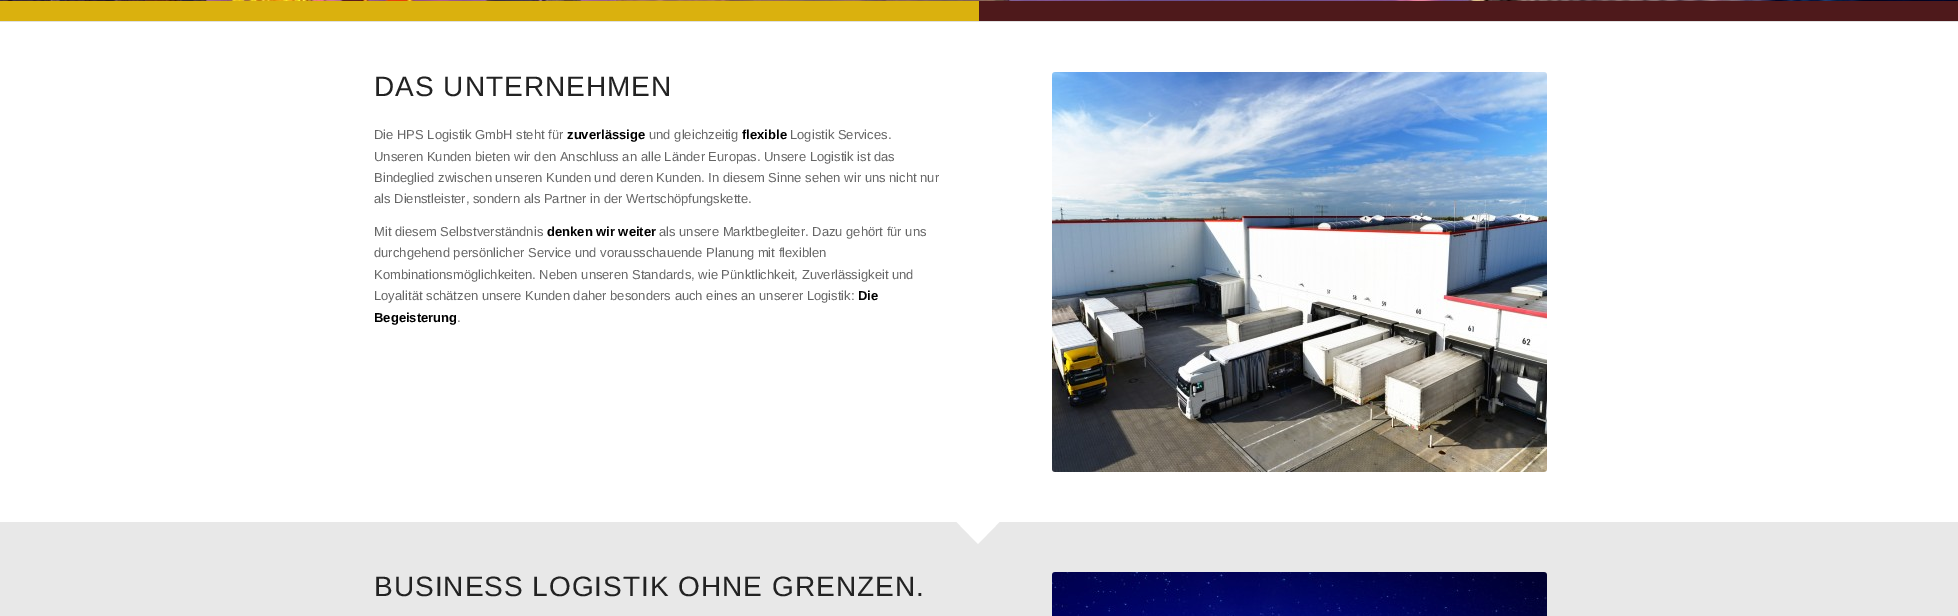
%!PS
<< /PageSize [1958 616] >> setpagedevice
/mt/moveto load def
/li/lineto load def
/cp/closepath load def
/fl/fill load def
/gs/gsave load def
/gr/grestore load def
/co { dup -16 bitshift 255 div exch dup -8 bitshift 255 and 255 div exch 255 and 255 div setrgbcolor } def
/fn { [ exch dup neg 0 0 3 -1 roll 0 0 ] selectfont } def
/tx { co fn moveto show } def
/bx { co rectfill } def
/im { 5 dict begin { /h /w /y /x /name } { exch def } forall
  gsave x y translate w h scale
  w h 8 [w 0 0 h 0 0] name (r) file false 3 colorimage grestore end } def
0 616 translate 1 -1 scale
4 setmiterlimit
0 0 1958 616 16#FFFFFF bx
(media/1.raw) 0 0 1958 1 im
0 1 979 20 16#DAB10E bx
979 1 979 20 16#4E191B bx
0 21 1958 1 16#E1E1E1 bx
(media/2.raw) 1052 72 495 400 im
0 522 1958 94 16#E8E8E8 bx
gs
953 522 50 25 rectclip
16#FFFFFF co
978 473 mt 1013 508 li 978 544 li 943 508 li cp fl
gr
(media/3.raw) 1052 572 495 44 im
/LiberationSans-Regular 28 fn
16#222222 co
374 96 mt 1 0 (DAS UNTERNEHMEN) ashow
(Die HPS Logistik GmbH steht für) 374 139 /LiberationSans-Regular 13 16#666666 tx
(zuverlässige) 567 139 /LiberationSans-Bold 13 16#000000 tx
(und gleichzeitig) 649 139 /LiberationSans-Regular 13 16#666666 tx
(flexible) 742 139 /LiberationSans-Bold 13 16#000000 tx
(Logistik Services.) 790 139 /LiberationSans-Regular 13 16#666666 tx
(Unseren Kunden bieten wir den Anschluss an alle Länder Europas. Unsere Logistik ist das) 374 161 /LiberationSans-Regular 13 16#666666 tx
(Bindeglied zwischen unseren Kunden und deren Kunden. In diesem Sinne sehen wir uns nicht nur) 374 182 /LiberationSans-Regular 13 16#666666 tx
(als Dienstleister, sondern als Partner in der Wertschöpfungskette.) 374 203 /LiberationSans-Regular 13 16#666666 tx
(Mit diesem Selbstverständnis) 374 236 /LiberationSans-Regular 13 16#666666 tx
(denken wir weiter) 547 236 /LiberationSans-Bold 13 16#000000 tx
(als unsere Marktbegleiter. Dazu gehört für uns) 659 236 /LiberationSans-Regular 13 16#666666 tx
(durchgehend persönlicher Service und vorausschauende Planung mit flexiblen) 374 257 /LiberationSans-Regular 13 16#666666 tx
(Kombinationsmöglichkeiten. Neben unseren Standards, wie Pünktlichkeit, Zuverlässigkeit und) 374 279 /LiberationSans-Regular 13 16#666666 tx
(Loyalität schätzen unsere Kunden daher besonders auch eines an unserer Logistik:) 374 300 /LiberationSans-Regular 13 16#666666 tx
(Die) 858 300 /LiberationSans-Bold 13 16#000000 tx
(Begeisterung) 374 322 /LiberationSans-Bold 13 16#000000 tx
(.) 457 322 /LiberationSans-Regular 13 16#666666 tx
/LiberationSans-Regular 28 fn
16#222222 co
374 596 mt 1 0 (BUSINESS LOGISTIK OHNE GRENZEN.) ashow
showpage
